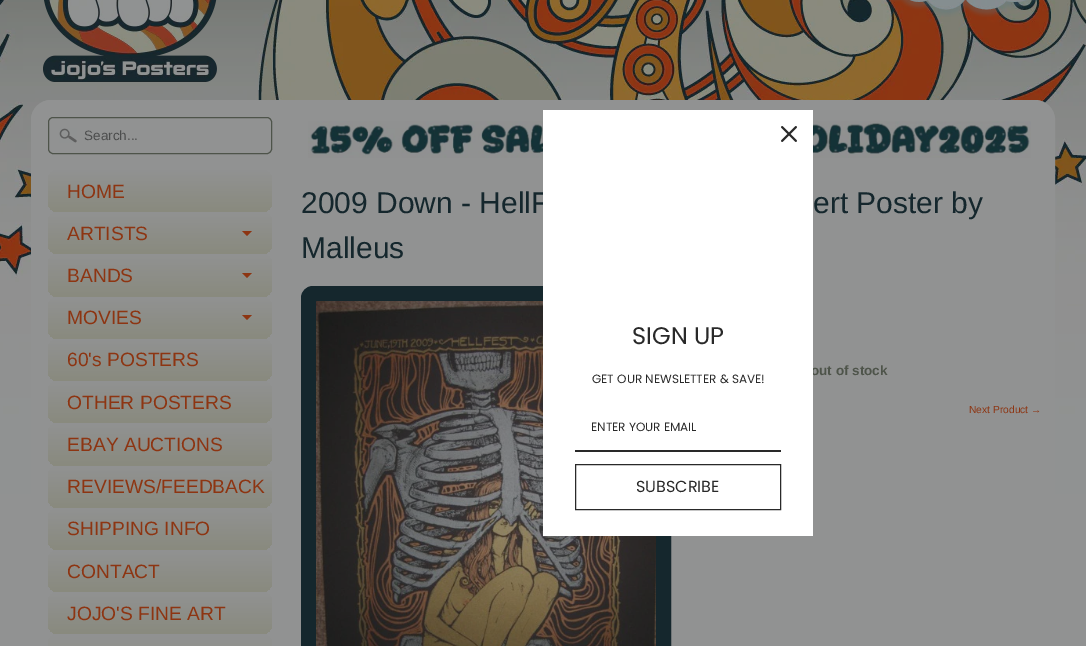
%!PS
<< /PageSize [1086 646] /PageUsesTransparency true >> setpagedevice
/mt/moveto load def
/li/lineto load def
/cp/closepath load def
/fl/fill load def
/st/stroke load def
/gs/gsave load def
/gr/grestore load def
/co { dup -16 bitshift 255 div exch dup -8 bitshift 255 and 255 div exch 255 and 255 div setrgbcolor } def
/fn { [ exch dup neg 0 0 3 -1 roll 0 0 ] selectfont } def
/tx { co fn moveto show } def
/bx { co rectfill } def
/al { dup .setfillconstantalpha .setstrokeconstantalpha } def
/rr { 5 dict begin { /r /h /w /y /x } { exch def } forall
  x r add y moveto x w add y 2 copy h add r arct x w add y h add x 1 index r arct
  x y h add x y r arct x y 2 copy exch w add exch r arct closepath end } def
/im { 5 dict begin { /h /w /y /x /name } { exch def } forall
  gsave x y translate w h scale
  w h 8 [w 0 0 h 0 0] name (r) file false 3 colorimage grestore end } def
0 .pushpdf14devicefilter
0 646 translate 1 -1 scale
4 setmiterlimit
0 0 1086 646 16#919292 bx
(media/1.raw) 0 0 1086 494 im
(media/2.raw) 43 0 174 82 im
(media/3.raw) 883 0 155 17 im
31 100 1024 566 20 rr fl
0.7 al
31.5 100.5 1023 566 19.5 rr st
1 al
(media/4.raw) 59 128 18 15 im
16#4E544A co
48.5 117.5 223 36 4.5 rr st
gs 48 170 224 42 10 rr clip newpath
<< /ShadingType 2 /ColorSpace /DeviceRGB /Coords [160 170 160 212] /Extend [true true] /Function << /FunctionType 2 /Domain [0 1] /C0 [.569 .573 .573] /C1 [.537 .541 .494] /N 1 >> >> shfill gr
gs 48 212 224 42 10 rr clip newpath
<< /ShadingType 2 /ColorSpace /DeviceRGB /Coords [160 212 160 254] /Extend [true true] /Function << /FunctionType 2 /Domain [0 1] /C0 [.569 .573 .573] /C1 [.537 .541 .494] /N 1 >> >> shfill gr
16#8D3512 co
242 231 mt 252 231 li 247 236 li cp fl
gs 48 254 224 43 10 rr clip newpath
<< /ShadingType 2 /ColorSpace /DeviceRGB /Coords [160 254 160 297] /Extend [true true] /Function << /FunctionType 2 /Domain [0 1] /C0 [.569 .573 .573] /C1 [.537 .541 .494] /N 1 >> >> shfill gr
242 273 mt 252 273 li 247 278 li cp fl
gs 48 297 224 42 10 rr clip newpath
<< /ShadingType 2 /ColorSpace /DeviceRGB /Coords [160 297 160 339] /Extend [true true] /Function << /FunctionType 2 /Domain [0 1] /C0 [.569 .573 .573] /C1 [.537 .541 .494] /N 1 >> >> shfill gr
242 315 mt 252 315 li 247 320 li cp fl
gs 48 339 224 42 10 rr clip newpath
<< /ShadingType 2 /ColorSpace /DeviceRGB /Coords [160 339 160 381] /Extend [true true] /Function << /FunctionType 2 /Domain [0 1] /C0 [.569 .573 .573] /C1 [.537 .541 .494] /N 1 >> >> shfill gr
gs 48 381 224 42 10 rr clip newpath
<< /ShadingType 2 /ColorSpace /DeviceRGB /Coords [160 381 160 423] /Extend [true true] /Function << /FunctionType 2 /Domain [0 1] /C0 [.569 .573 .573] /C1 [.537 .541 .494] /N 1 >> >> shfill gr
gs 48 423 224 43 10 rr clip newpath
<< /ShadingType 2 /ColorSpace /DeviceRGB /Coords [160 423 160 466] /Extend [true true] /Function << /FunctionType 2 /Domain [0 1] /C0 [.569 .573 .573] /C1 [.537 .541 .494] /N 1 >> >> shfill gr
gs 48 466 224 42 10 rr clip newpath
<< /ShadingType 2 /ColorSpace /DeviceRGB /Coords [160 466 160 508] /Extend [true true] /Function << /FunctionType 2 /Domain [0 1] /C0 [.569 .573 .573] /C1 [.537 .541 .494] /N 1 >> >> shfill gr
gs 48 508 224 42 10 rr clip newpath
<< /ShadingType 2 /ColorSpace /DeviceRGB /Coords [160 508 160 550] /Extend [true true] /Function << /FunctionType 2 /Domain [0 1] /C0 [.569 .573 .573] /C1 [.537 .541 .494] /N 1 >> >> shfill gr
gs 48 550 224 42 10 rr clip newpath
<< /ShadingType 2 /ColorSpace /DeviceRGB /Coords [160 550 160 592] /Extend [true true] /Function << /FunctionType 2 /Domain [0 1] /C0 [.569 .573 .573] /C1 [.537 .541 .494] /N 1 >> >> shfill gr
gs 48 592 224 42 10 rr clip newpath
<< /ShadingType 2 /ColorSpace /DeviceRGB /Coords [160 592 160 634] /Extend [true true] /Function << /FunctionType 2 /Domain [0 1] /C0 [.569 .573 .573] /C1 [.537 .541 .494] /N 1 >> >> shfill gr
gs 48 634 224 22 10 rr clip newpath
<< /ShadingType 2 /ColorSpace /DeviceRGB /Coords [160 634 160 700] /Extend [true true] /Function << /FunctionType 2 /Domain [0 1] /C0 [.569 .573 .573] /C1 [.537 .541 .494] /N 1 >> >> shfill gr
(media/5.raw) 308 121 723 37 im
16#15272D co
301.5 286.5 369 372 11.5 rr gs fl gr
st
(media/6.raw) 316 301 340 345 im
(Search...) 84 140 /LiberationSans-Regular 13.5 16#4C4D4D tx
(HOME) 67 198 /LiberationSans-Regular 19.25 16#8D3512 tx
(ARTISTS) 67 240 /LiberationSans-Regular 19.25 16#8D3512 tx
(BANDS) 67 282 /LiberationSans-Regular 19.25 16#8D3512 tx
(MOVIES) 67 324 /LiberationSans-Regular 19.25 16#8D3512 tx
(60's POSTERS) 67 366 /LiberationSans-Regular 19.25 16#8D3512 tx
(OTHER POSTERS) 67 409 /LiberationSans-Regular 19.25 16#8D3512 tx
(EBAY AUCTIONS) 67 451 /LiberationSans-Regular 19.25 16#8D3512 tx
(REVIEWS/FEEDBACK) 67 493 /LiberationSans-Regular 19.25 16#8D3512 tx
(SHIPPING INFO) 67 535 /LiberationSans-Regular 19.25 16#8D3512 tx
(CONTACT) 67 578 /LiberationSans-Regular 19.25 16#8D3512 tx
(JOJO'S FINE ART) 67 620 /LiberationSans-Regular 19.25 16#8D3512 tx
(2009 Down - HellF) 301 213 /LiberationSans-Regular 30 16#15272D tx
(ert Poster by) 813 213 /LiberationSans-Regular 30 16#15272D tx
(Malleus) 301 258 /LiberationSans-Regular 30 16#15272D tx
(out of stock) 811 375 /LiberationSans-Bold 13.5 16#4E544A tx
(Next Product →) 969 413 /LiberationSans-Regular 10.25 16#8D3512 tx
543 110 270 426 16#FFFFFF bx
(media/7.raw) 781 126 16 16 im
(SIGN UP) 632 344 /Poppins-Regular 24 16#292929 tx
(GET OUR NEWSLETTER & SAVE!) 592 383 /Poppins-Regular 12 16#292929 tx
575 450 206 2 16#292929 bx
(ENTER YOUR EMAIL) 591 431 /Poppins-Regular 12 16#292929 tx
575.5 464.5 205 45 rectstroke
(SUBSCRIBE) 636 492 /Poppins-Regular 16 16#292929 tx
.poppdf14devicefilter showpage
